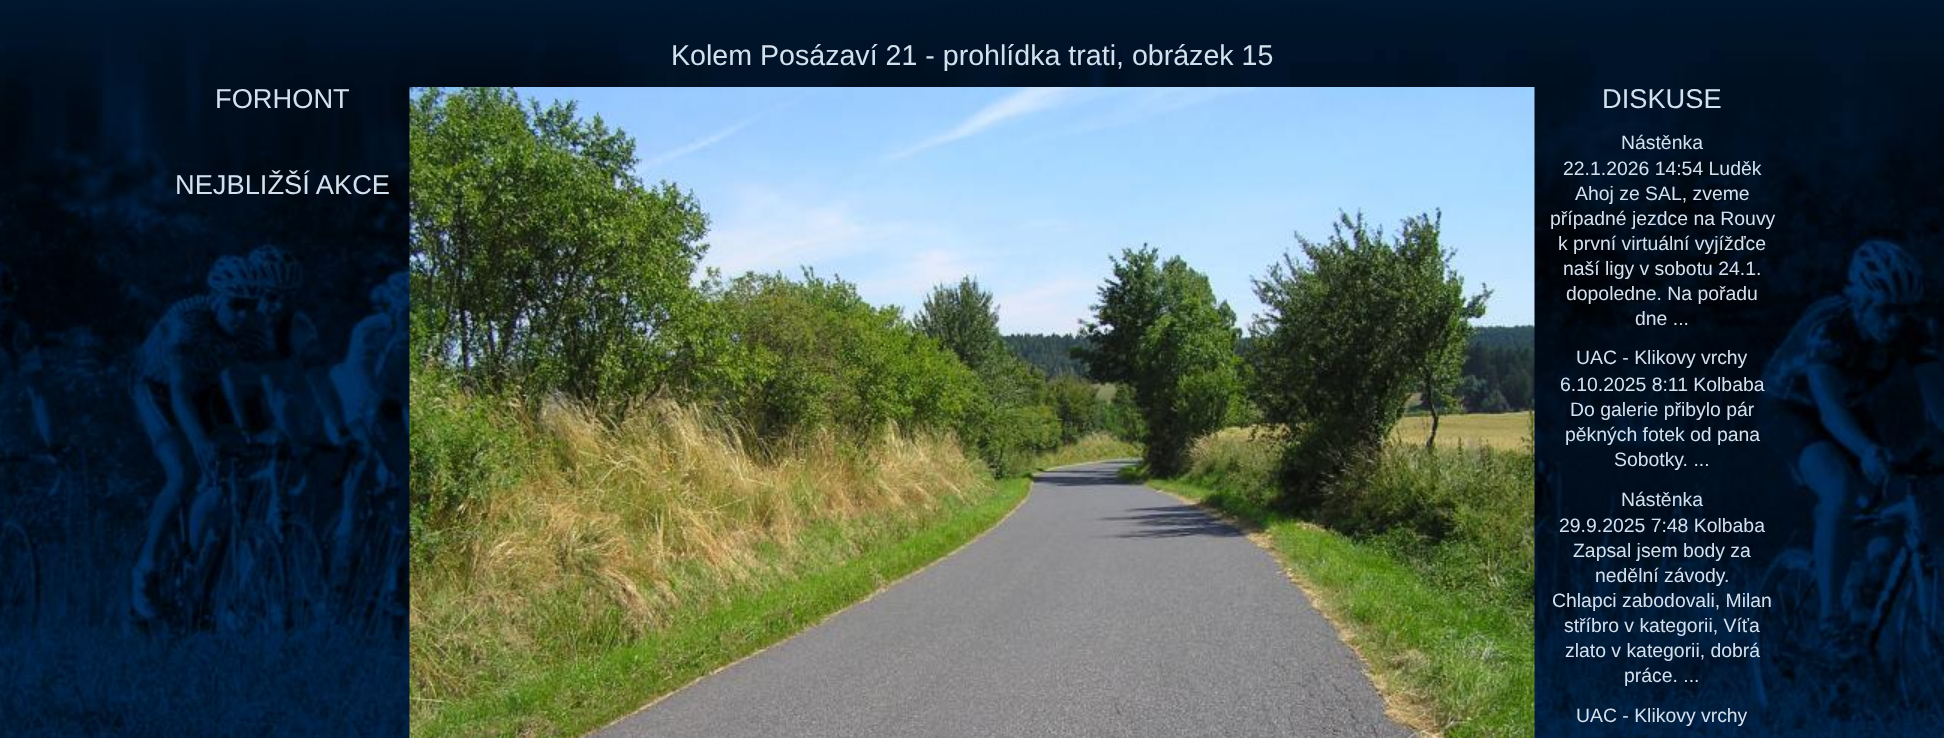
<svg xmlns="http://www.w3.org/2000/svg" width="1944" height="738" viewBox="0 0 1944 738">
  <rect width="100%" height="100%" fill="#ffffff"/>
  <image x="0" y="0" width="1944" height="738" href="img1.png"/>
  <text x="671" y="65" font-family="Liberation Sans" font-size="28.6" fill="#d3e0ed">Kolem Posázaví 21 - prohlídka trati, obrázek 15</text>
  <image x="409" y="87" width="1126" height="651" href="img2.png"/>
  <text x="215" y="108" font-family="Liberation Sans" font-size="27.25" fill="#d3e0ed">FORHONT</text>
  <text x="175" y="194" font-family="Liberation Sans" font-size="27.25" fill="#d3e0ed">NEJBLIŽŠÍ AKCE</text>
  <text x="1602" y="108" font-family="Liberation Sans" font-size="27.25" fill="#d3e0ed">DISKUSE</text>
  <text x="1621" y="149" font-family="Liberation Sans" font-size="19.4" fill="#d3e0ed">Nástěnka</text>
  <text x="1563" y="175" font-family="Liberation Sans" font-size="19.4" fill="#d3e0ed">22.1.2026 14:54 Luděk</text>
  <text x="1575" y="200" font-family="Liberation Sans" font-size="19.4" fill="#d3e0ed">Ahoj ze SAL, zveme</text>
  <text x="1550" y="225" font-family="Liberation Sans" font-size="19.4" fill="#d3e0ed">případné jezdce na Rouvy</text>
  <text x="1558" y="250" font-family="Liberation Sans" font-size="19.4" fill="#d3e0ed">k první virtuální vyjížďce</text>
  <text x="1563" y="275" font-family="Liberation Sans" font-size="19.4" fill="#d3e0ed">naší ligy v sobotu 24.1.</text>
  <text x="1566" y="300" font-family="Liberation Sans" font-size="19.4" fill="#d3e0ed">dopoledne. Na pořadu</text>
  <text x="1635" y="325" font-family="Liberation Sans" font-size="19.4" fill="#d3e0ed">dne ...</text>
  <text x="1576" y="364" font-family="Liberation Sans" font-size="19.4" fill="#d3e0ed">UAC - Klikovy vrchy</text>
  <text x="1560" y="391" font-family="Liberation Sans" font-size="19.4" fill="#d3e0ed">6.10.2025 8:11 Kolbaba</text>
  <text x="1570" y="416" font-family="Liberation Sans" font-size="19.4" fill="#d3e0ed">Do galerie přibylo pár</text>
  <text x="1565" y="441" font-family="Liberation Sans" font-size="19.4" fill="#d3e0ed">pěkných fotek od pana</text>
  <text x="1614" y="466" font-family="Liberation Sans" font-size="19.4" fill="#d3e0ed">Sobotky. ...</text>
  <text x="1621" y="506" font-family="Liberation Sans" font-size="19.4" fill="#d3e0ed">Nástěnka</text>
  <text x="1559" y="532" font-family="Liberation Sans" font-size="19.4" fill="#d3e0ed">29.9.2025 7:48 Kolbaba</text>
  <text x="1573" y="557" font-family="Liberation Sans" font-size="19.4" fill="#d3e0ed">Zapsal jsem body za</text>
  <text x="1595" y="582" font-family="Liberation Sans" font-size="19.4" fill="#d3e0ed">nedělní závody.</text>
  <text x="1552" y="607" font-family="Liberation Sans" font-size="19.4" fill="#d3e0ed">Chlapci zabodovali, Milan</text>
  <text x="1564" y="632" font-family="Liberation Sans" font-size="19.4" fill="#d3e0ed">stříbro v kategorii, Víťa</text>
  <text x="1565" y="657" font-family="Liberation Sans" font-size="19.4" fill="#d3e0ed">zlato v kategorii, dobrá</text>
  <text x="1624" y="682" font-family="Liberation Sans" font-size="19.4" fill="#d3e0ed">práce. ...</text>
  <text x="1576" y="722" font-family="Liberation Sans" font-size="19.4" fill="#d3e0ed">UAC - Klikovy vrchy</text>
</svg>
